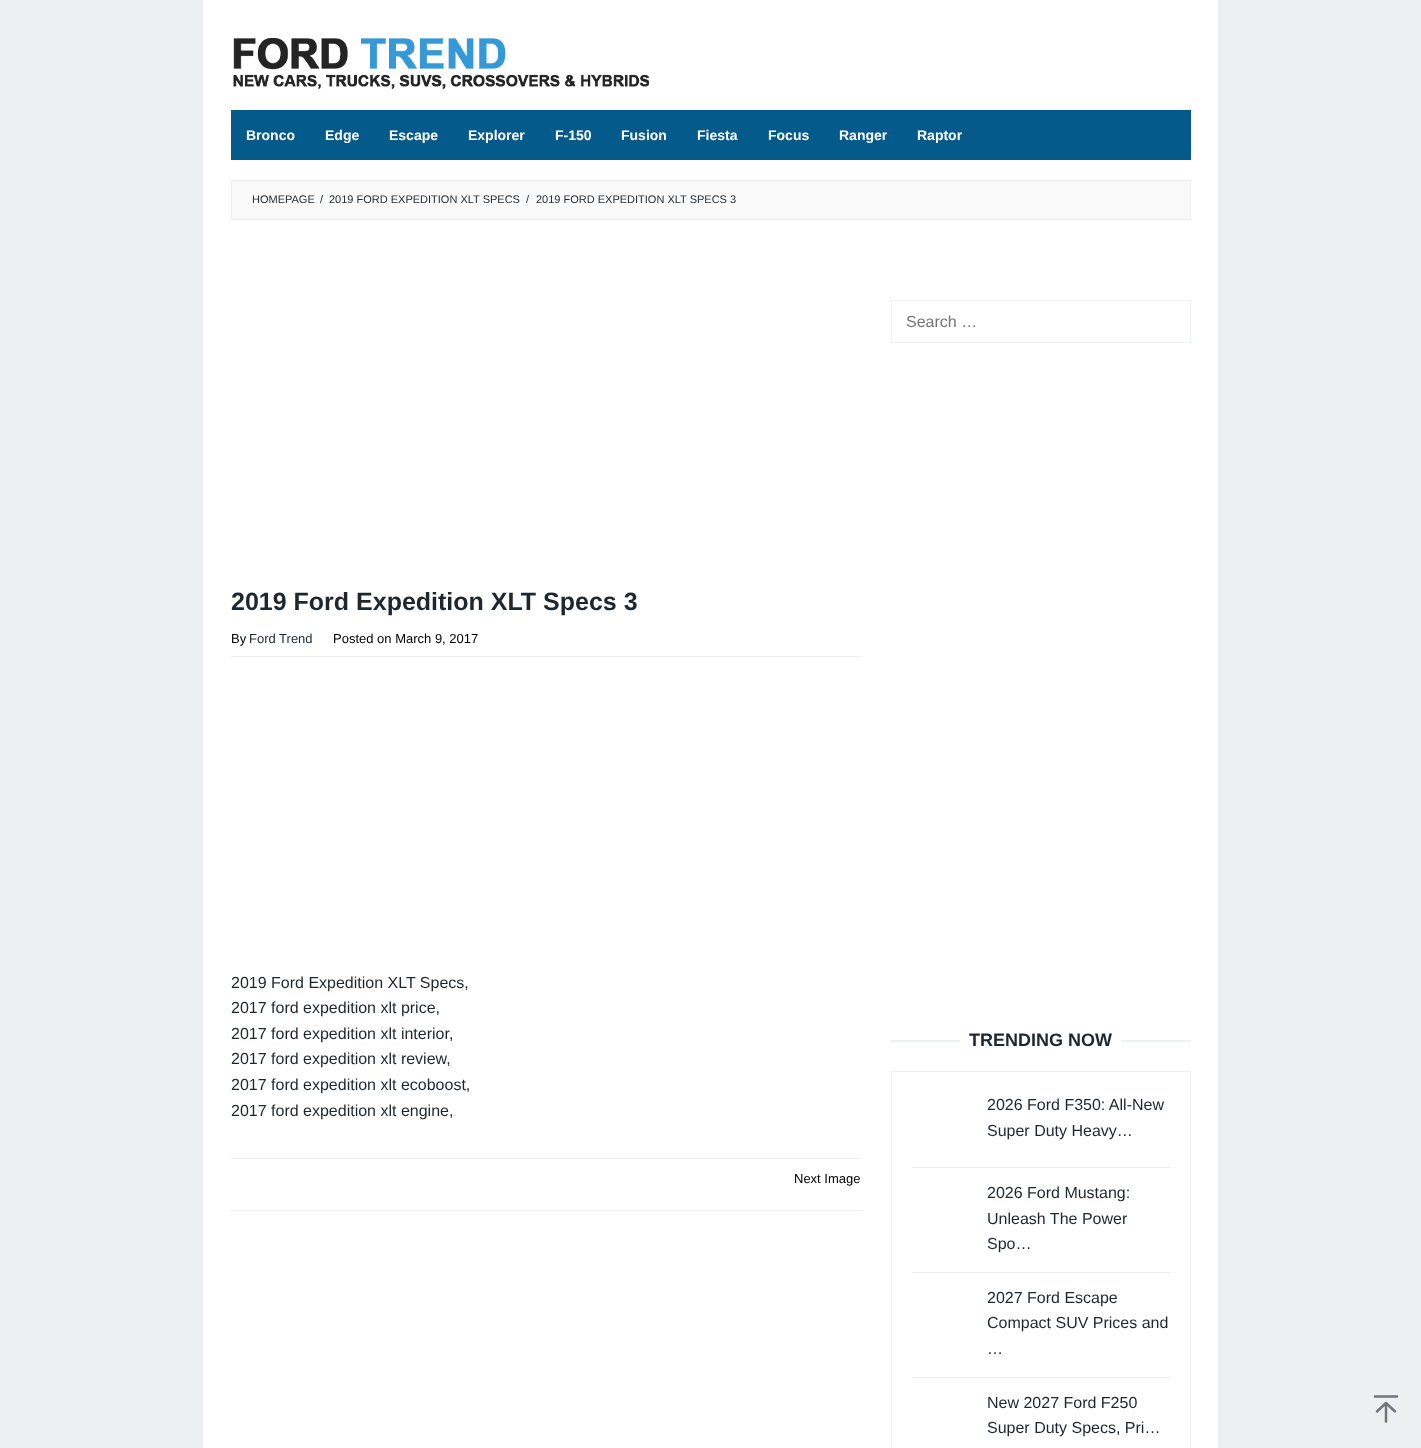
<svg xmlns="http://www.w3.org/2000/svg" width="1421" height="1448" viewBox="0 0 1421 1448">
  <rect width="100%" height="100%" fill="#ecf0f1"/>
  <rect x="203" y="0" width="1015" height="110" fill="#ffffff"/>
  <image x="233" y="38" width="416" height="51" href="img1.png"/>
  <rect x="203" y="110" width="1015" height="1338" fill="#ffffff"/>
  <rect x="231" y="110" width="960" height="50" fill="#045b8b"/>
  <text x="246" y="140" font-family="Liberation Sans" font-size="14" font-weight="bold" fill="#ffffff">Bronco</text>
  <text x="325" y="140" font-family="Liberation Sans" font-size="14" font-weight="bold" fill="#ffffff">Edge</text>
  <text x="389" y="140" font-family="Liberation Sans" font-size="14" font-weight="bold" fill="#ffffff">Escape</text>
  <text x="468" y="140" font-family="Liberation Sans" font-size="14" font-weight="bold" fill="#ffffff">Explorer</text>
  <text x="555" y="140" font-family="Liberation Sans" font-size="14" font-weight="bold" fill="#ffffff">F-150</text>
  <text x="621" y="140" font-family="Liberation Sans" font-size="14" font-weight="bold" fill="#ffffff">Fusion</text>
  <text x="697" y="140" font-family="Liberation Sans" font-size="14" font-weight="bold" fill="#ffffff">Fiesta</text>
  <text x="768" y="140" font-family="Liberation Sans" font-size="14" font-weight="bold" fill="#ffffff">Focus</text>
  <text x="839" y="140" font-family="Liberation Sans" font-size="14" font-weight="bold" fill="#ffffff">Ranger</text>
  <text x="917" y="140" font-family="Liberation Sans" font-size="14" font-weight="bold" fill="#ffffff">Raptor</text>
  <rect x="231.5" y="180.5" width="959" height="39" fill="#f9f9f9" stroke="#ecf0f1"/>
  <text x="252" y="203" font-family="Liberation Sans" font-size="11" fill="#1e272e">HOMEPAGE</text>
  <text x="320" y="203" font-family="Liberation Sans" font-size="11" fill="#1e272e">/</text>
  <text x="329" y="203" font-family="Liberation Sans" font-size="11" fill="#1e272e">2019 FORD EXPEDITION XLT SPECS</text>
  <text x="526" y="203" font-family="Liberation Sans" font-size="11" fill="#1e272e">/</text>
  <text x="536" y="203" font-family="Liberation Sans" font-size="11" fill="#1e272e">2019 FORD EXPEDITION XLT SPECS 3</text>
  <rect x="231" y="1210" width="630" height="1" fill="#ecf0f1"/>
  <rect x="231" y="656" width="630" height="1" fill="#ecf0f1"/>
  <text x="231" y="610" font-family="Liberation Sans" font-size="25" font-weight="bold" fill="#1e272e">2019 Ford Expedition XLT Specs 3</text>
  <text x="231" y="643" font-family="Liberation Sans" font-size="13" fill="#000000">By</text>
  <text x="249" y="643" font-family="Liberation Sans" font-size="13" fill="#1e272e">Ford Trend</text>
  <text x="333" y="643" font-family="Liberation Sans" font-size="13" fill="#000000">Posted on March 9, 2017</text>
  <text x="231" y="988" font-family="Liberation Sans" font-size="16" fill="#1e272e">2019 Ford Expedition XLT Specs,</text>
  <text x="231" y="1013" font-family="Liberation Sans" font-size="16" fill="#1e272e">2017 ford expedition xlt price,</text>
  <text x="231" y="1039" font-family="Liberation Sans" font-size="16" fill="#1e272e">2017 ford expedition xlt interior,</text>
  <text x="231" y="1064" font-family="Liberation Sans" font-size="16" fill="#1e272e">2017 ford expedition xlt review,</text>
  <text x="231" y="1090" font-family="Liberation Sans" font-size="16" fill="#1e272e">2017 ford expedition xlt ecoboost,</text>
  <text x="231" y="1116" font-family="Liberation Sans" font-size="16" fill="#1e272e">2017 ford expedition xlt engine,</text>
  <rect x="231" y="1158" width="630" height="1" fill="#ecf0f1"/>
  <text x="794" y="1183" font-family="Liberation Sans" font-size="13" fill="#000000">Next Image</text>
  <rect x="891.5" y="300.5" width="299" height="42" fill="none" stroke="#ecf0f1"/>
  <text x="906" y="327" font-family="Liberation Sans" font-size="16" fill="#757575">Search …</text>
  <rect x="891" y="1040" width="69" height="2" fill="#ecf0f1"/>
  <text x="969" y="1046" font-family="Liberation Sans" font-size="18" font-weight="bold" fill="#1e272e">TRENDING NOW</text>
  <rect x="1121" y="1040" width="70" height="2" fill="#ecf0f1"/>
  <rect x="891.5" y="1071.5" width="299" height="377" fill="none" stroke="#ecf0f1"/>
  <rect x="912" y="1167" width="258" height="1" fill="#ecf0f1"/>
  <text x="987" y="1110" font-family="Liberation Sans" font-size="16" fill="#1e272e">2026 Ford F350: All-New</text>
  <text x="987" y="1136" font-family="Liberation Sans" font-size="16" fill="#1e272e">Super Duty Heavy…</text>
  <rect x="912" y="1272" width="258" height="1" fill="#ecf0f1"/>
  <text x="987" y="1198" font-family="Liberation Sans" font-size="16" fill="#1e272e">2026 Ford Mustang:</text>
  <text x="987" y="1224" font-family="Liberation Sans" font-size="16" fill="#1e272e">Unleash The Power</text>
  <text x="987" y="1249" font-family="Liberation Sans" font-size="16" fill="#1e272e">Spo…</text>
  <rect x="912" y="1377" width="258" height="1" fill="#ecf0f1"/>
  <text x="987" y="1303" font-family="Liberation Sans" font-size="16" fill="#1e272e">2027 Ford Escape</text>
  <text x="987" y="1328" font-family="Liberation Sans" font-size="16" fill="#1e272e">Compact SUV Prices and</text>
  <text x="987" y="1354" font-family="Liberation Sans" font-size="16" fill="#1e272e">…</text>
  <text x="987" y="1408" font-family="Liberation Sans" font-size="16" fill="#1e272e">New 2027 Ford F250</text>
  <text x="987" y="1433" font-family="Liberation Sans" font-size="16" fill="#1e272e">Super Duty Specs, Pri…</text>
  <path d="M1386 1421.5V1403M1377 1411.5L1386 1403L1395 1411.5M1375 1396.5H1397" fill="none" stroke="#70777c" stroke-width="2.5" stroke-linecap="round" stroke-linejoin="round"/>
</svg>
